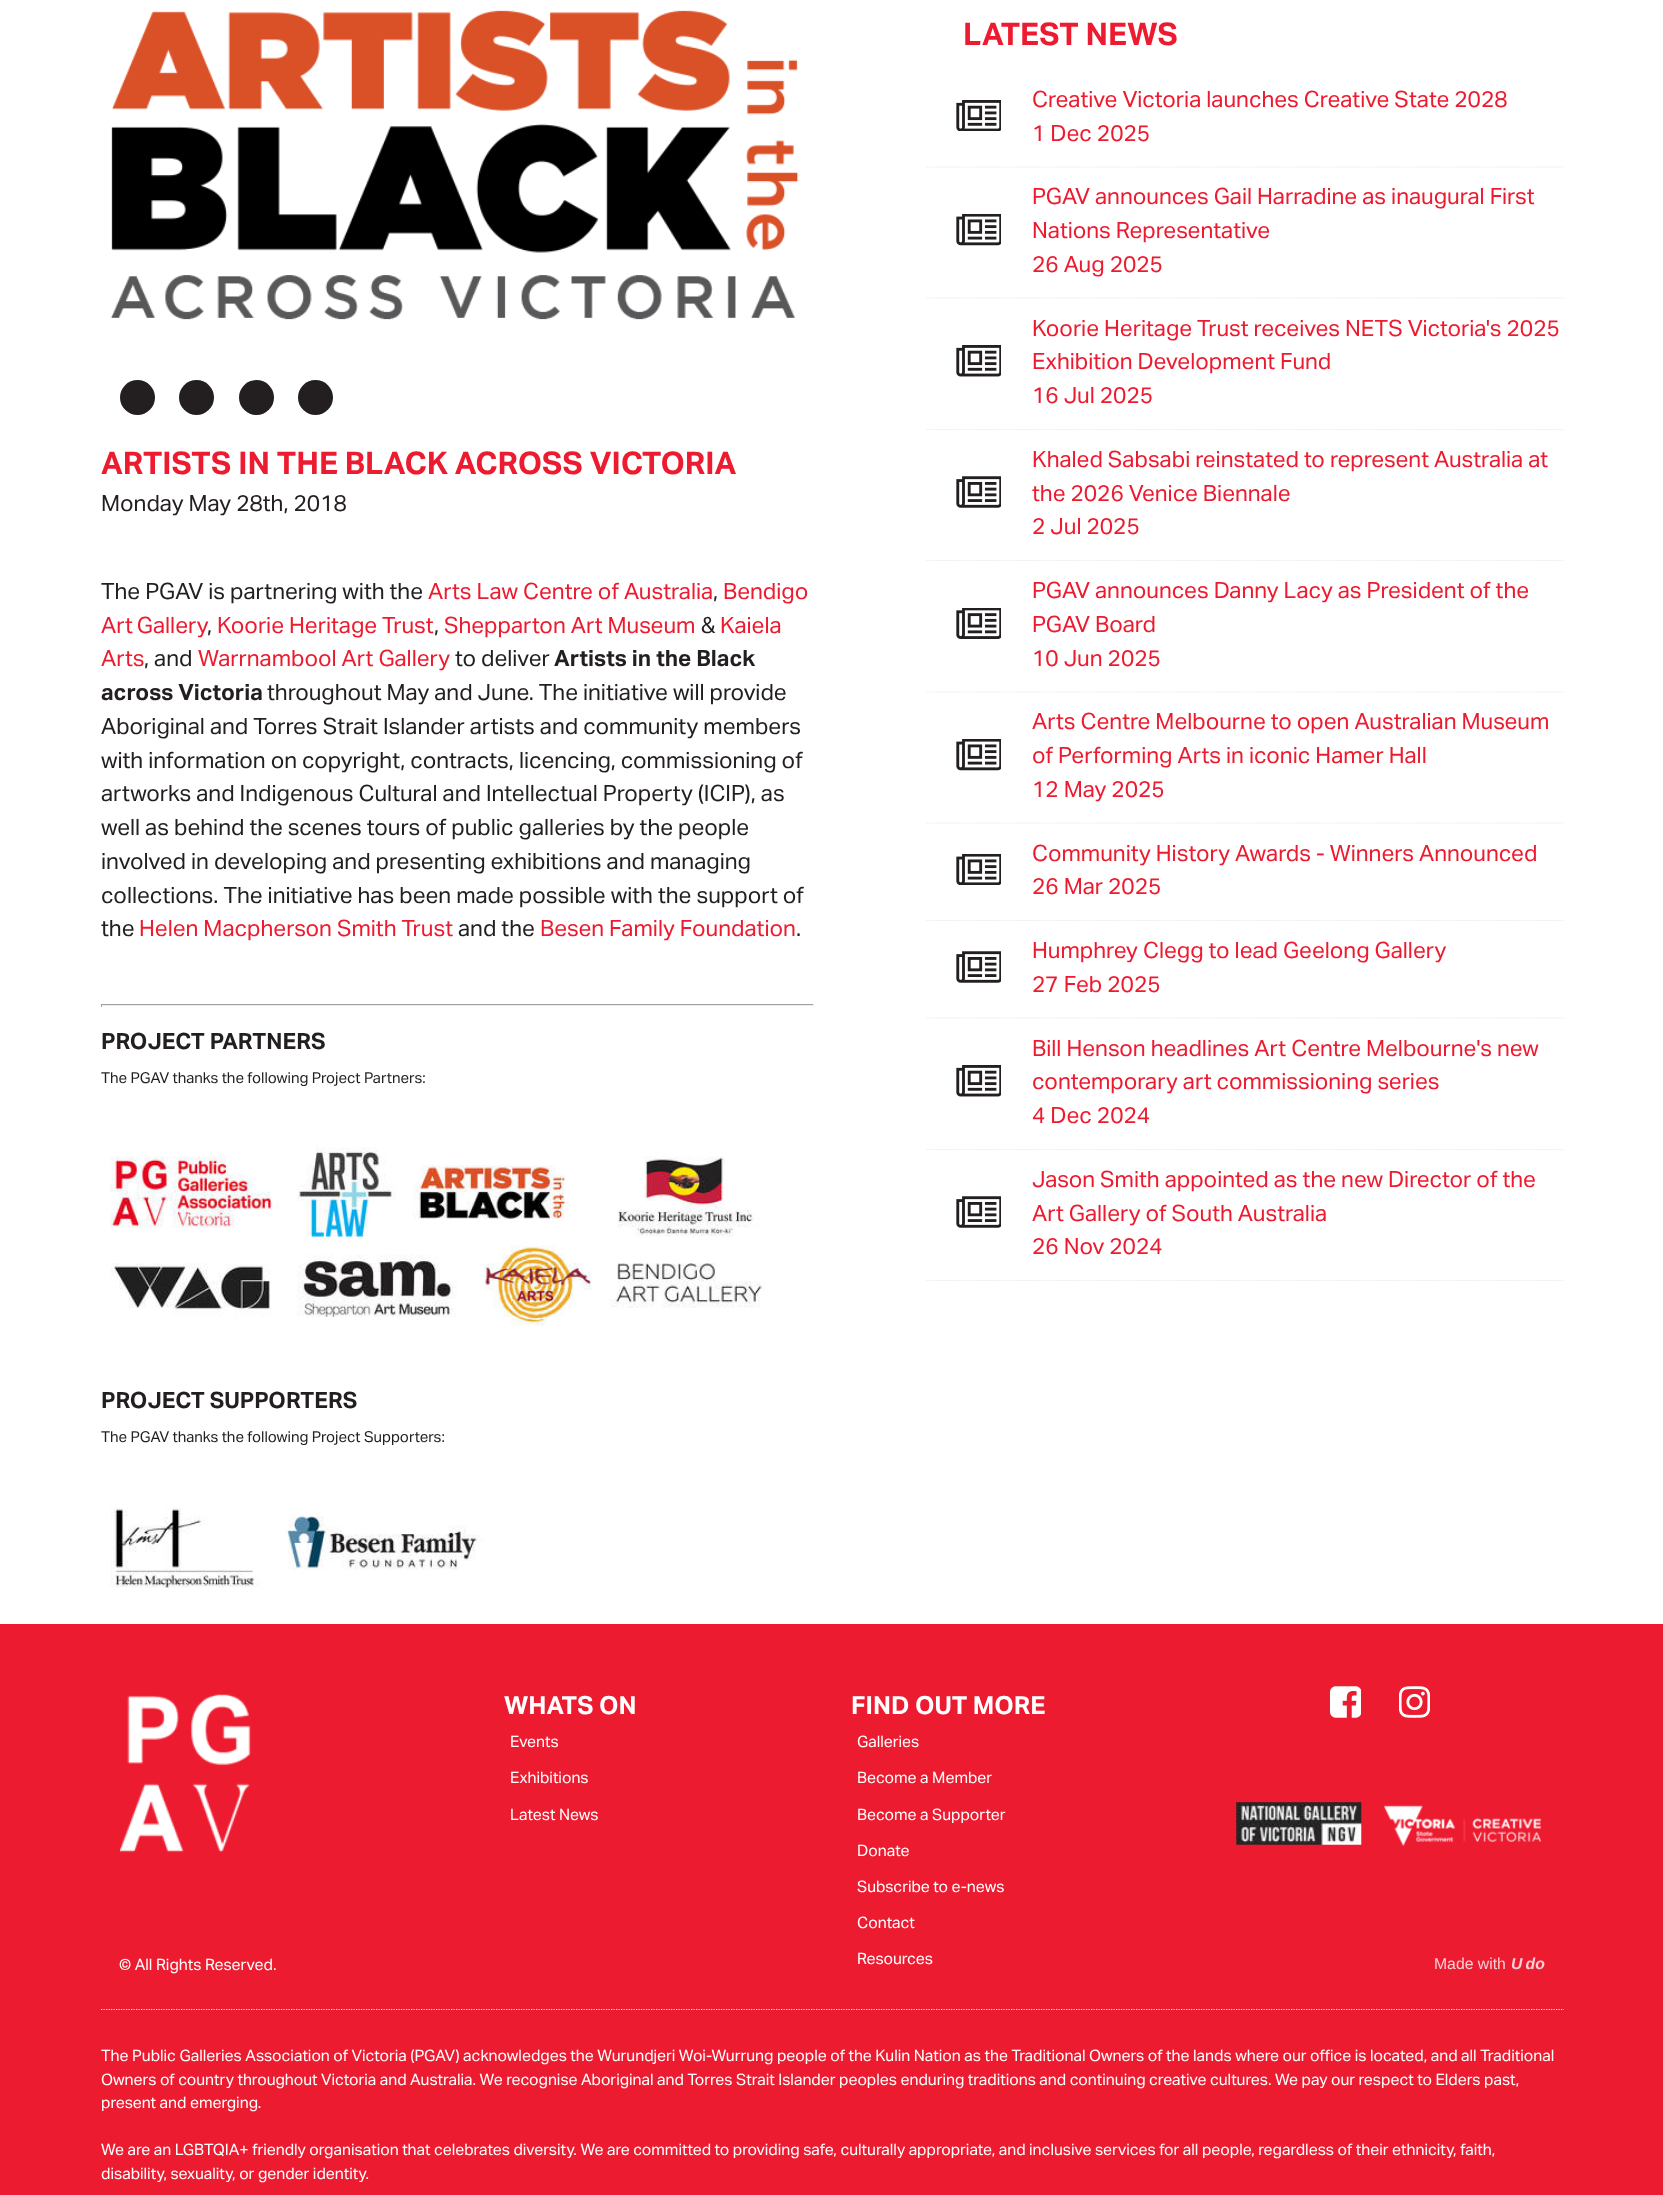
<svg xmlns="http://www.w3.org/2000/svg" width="1663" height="2195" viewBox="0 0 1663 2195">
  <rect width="100%" height="100%" fill="#ffffff"/>
  <image x="110" y="10" width="689" height="310" href="img1.png"/>
  <circle cx="137.5" cy="397.5" r="17.5" fill="#231f20"/>
  <circle cx="196.5" cy="397.5" r="17.5" fill="#231f20"/>
  <circle cx="256.5" cy="397.5" r="17.5" fill="#231f20"/>
  <circle cx="315.5" cy="397.5" r="17.5" fill="#231f20"/>
  <text x="101" y="474" font-family="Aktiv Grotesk" font-size="31.25" font-weight="bold" fill="#ed1b2f">ARTISTS IN THE BLACK ACROSS VICTORIA</text>
  <text x="101" y="511" font-family="Aktiv Grotesk" font-size="22.5" fill="#231f20">Monday May 28th, 2018</text>
  <text x="101" y="599" font-family="Aktiv Grotesk" font-size="22.5" fill="#231f20">The PGAV is partnering with the</text>
  <text x="428" y="599" font-family="Aktiv Grotesk" font-size="22.5" fill="#ed1b2f">Arts Law Centre of Australia</text>
  <text x="713" y="599" font-family="Aktiv Grotesk" font-size="22.5" fill="#231f20">,</text>
  <text x="723" y="599" font-family="Aktiv Grotesk" font-size="22.5" fill="#ed1b2f">Bendigo</text>
  <text x="101" y="633" word-spacing="-1" font-family="Aktiv Grotesk" font-size="22.5" fill="#ed1b2f">Art Gallery</text>
  <text x="207" y="633" font-family="Aktiv Grotesk" font-size="22.5" fill="#231f20">,</text>
  <text x="217" y="633" font-family="Aktiv Grotesk" font-size="22.5" fill="#ed1b2f">Koorie Heritage Trust</text>
  <text x="434" y="633" font-family="Aktiv Grotesk" font-size="22.5" fill="#231f20">,</text>
  <text x="444" y="633" font-family="Aktiv Grotesk" font-size="22.5" fill="#ed1b2f">Shepparton Art Museum</text>
  <text x="701" y="633" font-family="Aktiv Grotesk" font-size="22.5" fill="#231f20">&amp;</text>
  <text x="720" y="633" font-family="Aktiv Grotesk" font-size="22.5" fill="#ed1b2f">Kaiela</text>
  <text x="101" y="666" font-family="Aktiv Grotesk" font-size="22.5" fill="#ed1b2f">Arts</text>
  <text x="144" y="666" font-family="Aktiv Grotesk" font-size="22.5" fill="#231f20">, and</text>
  <text x="198" y="666" font-family="Aktiv Grotesk" font-size="22.5" fill="#ed1b2f">Warrnambool Art Gallery</text>
  <text x="455" y="666" font-family="Aktiv Grotesk" font-size="22.5" fill="#231f20">to deliver</text>
  <text x="554" y="666" font-family="Aktiv Grotesk" font-size="22.5" font-weight="bold" fill="#231f20">Artists in the Black</text>
  <text x="101" y="700" font-family="Aktiv Grotesk" font-size="22.5" font-weight="bold" fill="#231f20">across Victoria</text>
  <text x="267" y="700" font-family="Aktiv Grotesk" font-size="22.5" fill="#231f20">throughout May and June. The initiative will provide</text>
  <text x="101" y="734" font-family="Aktiv Grotesk" font-size="22.5" fill="#231f20">Aboriginal and Torres Strait Islander artists and community members</text>
  <text x="101" y="768" font-family="Aktiv Grotesk" font-size="22.5" fill="#231f20">with information on copyright, contracts, licencing, commissioning of</text>
  <text x="101" y="801" font-family="Aktiv Grotesk" font-size="22.5" fill="#231f20">artworks and Indigenous Cultural and Intellectual Property (ICIP), as</text>
  <text x="101" y="835" font-family="Aktiv Grotesk" font-size="22.5" fill="#231f20">well as behind the scenes tours of public galleries by the people</text>
  <text x="101" y="869" font-family="Aktiv Grotesk" font-size="22.5" fill="#231f20">involved in developing and presenting exhibitions and managing</text>
  <text x="101" y="903" font-family="Aktiv Grotesk" font-size="22.5" fill="#231f20">collections. The initiative has been made possible with the support of</text>
  <text x="101" y="936" font-family="Aktiv Grotesk" font-size="22.5" fill="#231f20">the</text>
  <text x="139" y="936" font-family="Aktiv Grotesk" font-size="22.5" fill="#ed1b2f">Helen Macpherson Smith Trust</text>
  <text x="458" y="936" font-family="Aktiv Grotesk" font-size="22.5" fill="#231f20">and the</text>
  <text x="540" y="936" font-family="Aktiv Grotesk" font-size="22.5" fill="#ed1b2f">Besen Family Foundation</text>
  <text x="796" y="936" font-family="Aktiv Grotesk" font-size="22.5" fill="#231f20">.</text>
  <rect x="101" y="1004" width="713" height="1" fill="#9f9f9f"/>
  <rect x="813" y="1004" width="1" height="3" fill="#eeeeee"/>
  <rect x="101" y="1005" width="713" height="1" fill="#eeeeee"/>
  <rect x="101" y="1004" width="1" height="3" fill="#9f9f9f"/>
  <text x="101" y="1049" font-family="Aktiv Grotesk" font-size="22.5" font-weight="bold" fill="#231f20">PROJECT PARTNERS</text>
  <text x="101" y="1083" font-family="Aktiv Grotesk" font-size="15" fill="#231f20">The PGAV thanks the following Project Partners:</text>
  <image x="110" y="1147" width="656" height="179" href="img2.png"/>
  <text x="101" y="1408" font-family="Aktiv Grotesk" font-size="22.5" font-weight="bold" fill="#231f20">PROJECT SUPPORTERS</text>
  <text x="101" y="1442" font-family="Aktiv Grotesk" font-size="15" fill="#231f20">The PGAV thanks the following Project Supporters:</text>
  <image x="110" y="1507" width="374" height="81" href="img3.png"/>
  <text x="963" y="45" font-family="Aktiv Grotesk" font-size="31.25" font-weight="bold" fill="#ed1b2f">LATEST NEWS</text>
  <image x="956" y="100" width="45" height="31" href="img4.png"/>
  <text x="1032" y="107" font-family="Aktiv Grotesk" font-size="22.5" fill="#ed1b2f">Creative Victoria launches Creative State 2028</text>
  <text x="1032" y="141" font-family="Aktiv Grotesk" font-size="22.5" fill="#ed1b2f">1 Dec 2025</text>
  <path d="M926 167H1564" fill="none" stroke="#e8e8e8" stroke-width="1.2" stroke-dasharray="1.25 1.25"/>
  <image x="956" y="214" width="45" height="32" href="img5.png"/>
  <text x="1032" y="204" font-family="Aktiv Grotesk" font-size="22.5" fill="#ed1b2f">PGAV announces Gail Harradine as inaugural First</text>
  <text x="1032" y="238" font-family="Aktiv Grotesk" font-size="22.5" fill="#ed1b2f">Nations Representative</text>
  <text x="1032" y="272" font-family="Aktiv Grotesk" font-size="22.5" fill="#ed1b2f">26 Aug 2025</text>
  <path d="M926 298H1564" fill="none" stroke="#e8e8e8" stroke-width="1.2" stroke-dasharray="1.25 1.25"/>
  <image x="956" y="345" width="45" height="32" href="img6.png"/>
  <text x="1032" y="336" font-family="Aktiv Grotesk" font-size="22.5" fill="#ed1b2f">Koorie Heritage Trust receives NETS Victoria's 2025</text>
  <text x="1032" y="369" font-family="Aktiv Grotesk" font-size="22.5" fill="#ed1b2f">Exhibition Development Fund</text>
  <text x="1032" y="403" font-family="Aktiv Grotesk" font-size="22.5" fill="#ed1b2f">16 Jul 2025</text>
  <path d="M926 429.5H1564" fill="none" stroke="#e8e8e8" stroke-width="1.2" stroke-dasharray="1.25 1.25"/>
  <image x="956" y="476" width="45" height="32" href="img7.png"/>
  <text x="1032" y="467" font-family="Aktiv Grotesk" font-size="22.5" fill="#ed1b2f">Khaled Sabsabi reinstated to represent Australia at</text>
  <text x="1032" y="501" font-family="Aktiv Grotesk" font-size="22.5" fill="#ed1b2f">the 2026 Venice Biennale</text>
  <text x="1032" y="534" font-family="Aktiv Grotesk" font-size="22.5" fill="#ed1b2f">2 Jul 2025</text>
  <path d="M926 560.5H1564" fill="none" stroke="#e8e8e8" stroke-width="1.2" stroke-dasharray="1.25 1.25"/>
  <image x="956" y="608" width="45" height="31" href="img8.png"/>
  <text x="1032" y="598" font-family="Aktiv Grotesk" font-size="22.5" fill="#ed1b2f">PGAV announces Danny Lacy as President of the</text>
  <text x="1032" y="632" font-family="Aktiv Grotesk" font-size="22.5" fill="#ed1b2f">PGAV Board</text>
  <text x="1032" y="666" font-family="Aktiv Grotesk" font-size="22.5" fill="#ed1b2f">10 Jun 2025</text>
  <path d="M926 692H1564" fill="none" stroke="#e8e8e8" stroke-width="1.2" stroke-dasharray="1.25 1.25"/>
  <image x="956" y="739" width="45" height="32" href="img5.png"/>
  <text x="1032" y="729" font-family="Aktiv Grotesk" font-size="22.5" fill="#ed1b2f">Arts Centre Melbourne to open Australian Museum</text>
  <text x="1032" y="763" font-family="Aktiv Grotesk" font-size="22.5" fill="#ed1b2f">of Performing Arts in iconic Hamer Hall</text>
  <text x="1032" y="797" font-family="Aktiv Grotesk" font-size="22.5" fill="#ed1b2f">12 May 2025</text>
  <path d="M926 823H1564" fill="none" stroke="#e8e8e8" stroke-width="1.2" stroke-dasharray="1.25 1.25"/>
  <image x="956" y="854" width="45" height="31" href="img9.png"/>
  <text x="1032" y="861" font-family="Aktiv Grotesk" font-size="22.5" fill="#ed1b2f">Community History Awards - Winners Announced</text>
  <text x="1032" y="894" font-family="Aktiv Grotesk" font-size="22.5" fill="#ed1b2f">26 Mar 2025</text>
  <path d="M926 920.5H1564" fill="none" stroke="#e8e8e8" stroke-width="1.2" stroke-dasharray="1.25 1.25"/>
  <image x="956" y="951" width="45" height="32" href="img7.png"/>
  <text x="1032" y="958" font-family="Aktiv Grotesk" font-size="22.5" fill="#ed1b2f">Humphrey Clegg to lead Geelong Gallery</text>
  <text x="1032" y="992" font-family="Aktiv Grotesk" font-size="22.5" fill="#ed1b2f">27 Feb 2025</text>
  <path d="M926 1018H1564" fill="none" stroke="#e8e8e8" stroke-width="1.2" stroke-dasharray="1.25 1.25"/>
  <image x="956" y="1065" width="45" height="32" href="img6.png"/>
  <text x="1032" y="1056" font-family="Aktiv Grotesk" font-size="22.5" fill="#ed1b2f">Bill Henson headlines Art Centre Melbourne's new</text>
  <text x="1032" y="1089" font-family="Aktiv Grotesk" font-size="22.5" fill="#ed1b2f">contemporary art commissioning series</text>
  <text x="1032" y="1123" font-family="Aktiv Grotesk" font-size="22.5" fill="#ed1b2f">4 Dec 2024</text>
  <path d="M926 1149.5H1564" fill="none" stroke="#e8e8e8" stroke-width="1.2" stroke-dasharray="1.25 1.25"/>
  <image x="956" y="1196" width="45" height="32" href="img7.png"/>
  <text x="1032" y="1187" font-family="Aktiv Grotesk" font-size="22.5" fill="#ed1b2f">Jason Smith appointed as the new Director of the</text>
  <text x="1032" y="1221" font-family="Aktiv Grotesk" font-size="22.5" fill="#ed1b2f">Art Gallery of South Australia</text>
  <text x="1032" y="1254" font-family="Aktiv Grotesk" font-size="22.5" fill="#ed1b2f">26 Nov 2024</text>
  <path d="M926 1280.5H1564" fill="none" stroke="#e8e8e8" stroke-width="1.2" stroke-dasharray="1.25 1.25"/>
  <rect x="0" y="1624" width="1663" height="571" fill="#ed1b2f"/>
  <image x="120" y="1694" width="131" height="159" href="img10.png"/>
  <text x="119" y="1970" font-family="Aktiv Grotesk" font-size="15.75" fill="#ffffff">© All Rights Reserved.</text>
  <text x="504" y="1714" font-family="Aktiv Grotesk" font-size="25" font-weight="bold" fill="#ffffff">WHATS ON</text>
  <text x="510" y="1747" font-family="Aktiv Grotesk" font-size="15.75" fill="#ffffff">Events</text>
  <text x="510" y="1783" font-family="Aktiv Grotesk" font-size="15.75" fill="#ffffff">Exhibitions</text>
  <text x="510" y="1820" font-family="Aktiv Grotesk" font-size="15.75" fill="#ffffff">Latest News</text>
  <text x="851" y="1714" font-family="Aktiv Grotesk" font-size="25" font-weight="bold" fill="#ffffff">FIND OUT MORE</text>
  <text x="857" y="1747" font-family="Aktiv Grotesk" font-size="15.75" fill="#ffffff">Galleries</text>
  <text x="857" y="1783" font-family="Aktiv Grotesk" font-size="15.75" fill="#ffffff">Become a Member</text>
  <text x="857" y="1820" font-family="Aktiv Grotesk" font-size="15.75" fill="#ffffff">Become a Supporter</text>
  <text x="857" y="1856" font-family="Aktiv Grotesk" font-size="15.75" fill="#ffffff">Donate</text>
  <text x="857" y="1892" font-family="Aktiv Grotesk" font-size="15.75" fill="#ffffff">Subscribe to e-news</text>
  <text x="857" y="1928" font-family="Aktiv Grotesk" font-size="15.75" fill="#ffffff">Contact</text>
  <text x="857" y="1964" font-family="Aktiv Grotesk" font-size="15.75" fill="#ffffff">Resources</text>
  <image x="1330" y="1686" width="31" height="32" href="img11.png"/>
  <image x="1399" y="1686" width="31" height="32" href="img12.png"/>
  <image x="1236" y="1802" width="126" height="43" href="img13.png"/>
  <image x="1384" y="1805" width="158" height="41" href="img14.png"/>
  <text x="1434" y="1969" font-family="Liberation Sans" font-size="15.75" fill="#fbd1d5">Made with</text>
  <text x="1511" y="1969" font-family="Liberation Sans" font-size="15.75" font-weight="bold" font-style="italic" fill="#fbd1d5">U do</text>
  <path d="M101 2009.5H1564" fill="none" stroke="#e8e8e8" stroke-width="1.2" stroke-dasharray="1.25 1.25"/>
  <text x="101" y="2061" font-family="Aktiv Grotesk" font-size="15.75" fill="#ffffff">The Public Galleries Association of Victoria (PGAV) acknowledges the Wurundjeri Woi-Wurrung people of the Kulin Nation as the Traditional Owners of the lands where our office is located, and all Traditional</text>
  <text x="101" y="2085" font-family="Aktiv Grotesk" font-size="15.75" fill="#ffffff">Owners of country throughout Victoria and Australia. We recognise Aboriginal and Torres Strait Islander peoples enduring traditions and continuing creative cultures. We pay our respect to Elders past,</text>
  <text x="101" y="2108" font-family="Aktiv Grotesk" font-size="15.75" fill="#ffffff">present and emerging.</text>
  <text x="101" y="2155" font-family="Aktiv Grotesk" font-size="15.75" fill="#ffffff">We are an LGBTQIA+ friendly organisation that celebrates diversity. We are committed to providing safe, culturally appropriate, and inclusive services for all people, regardless of their ethnicity, faith,</text>
  <text x="101" y="2179" font-family="Aktiv Grotesk" font-size="15.75" fill="#ffffff">disability, sexuality, or gender identity.</text>
</svg>
